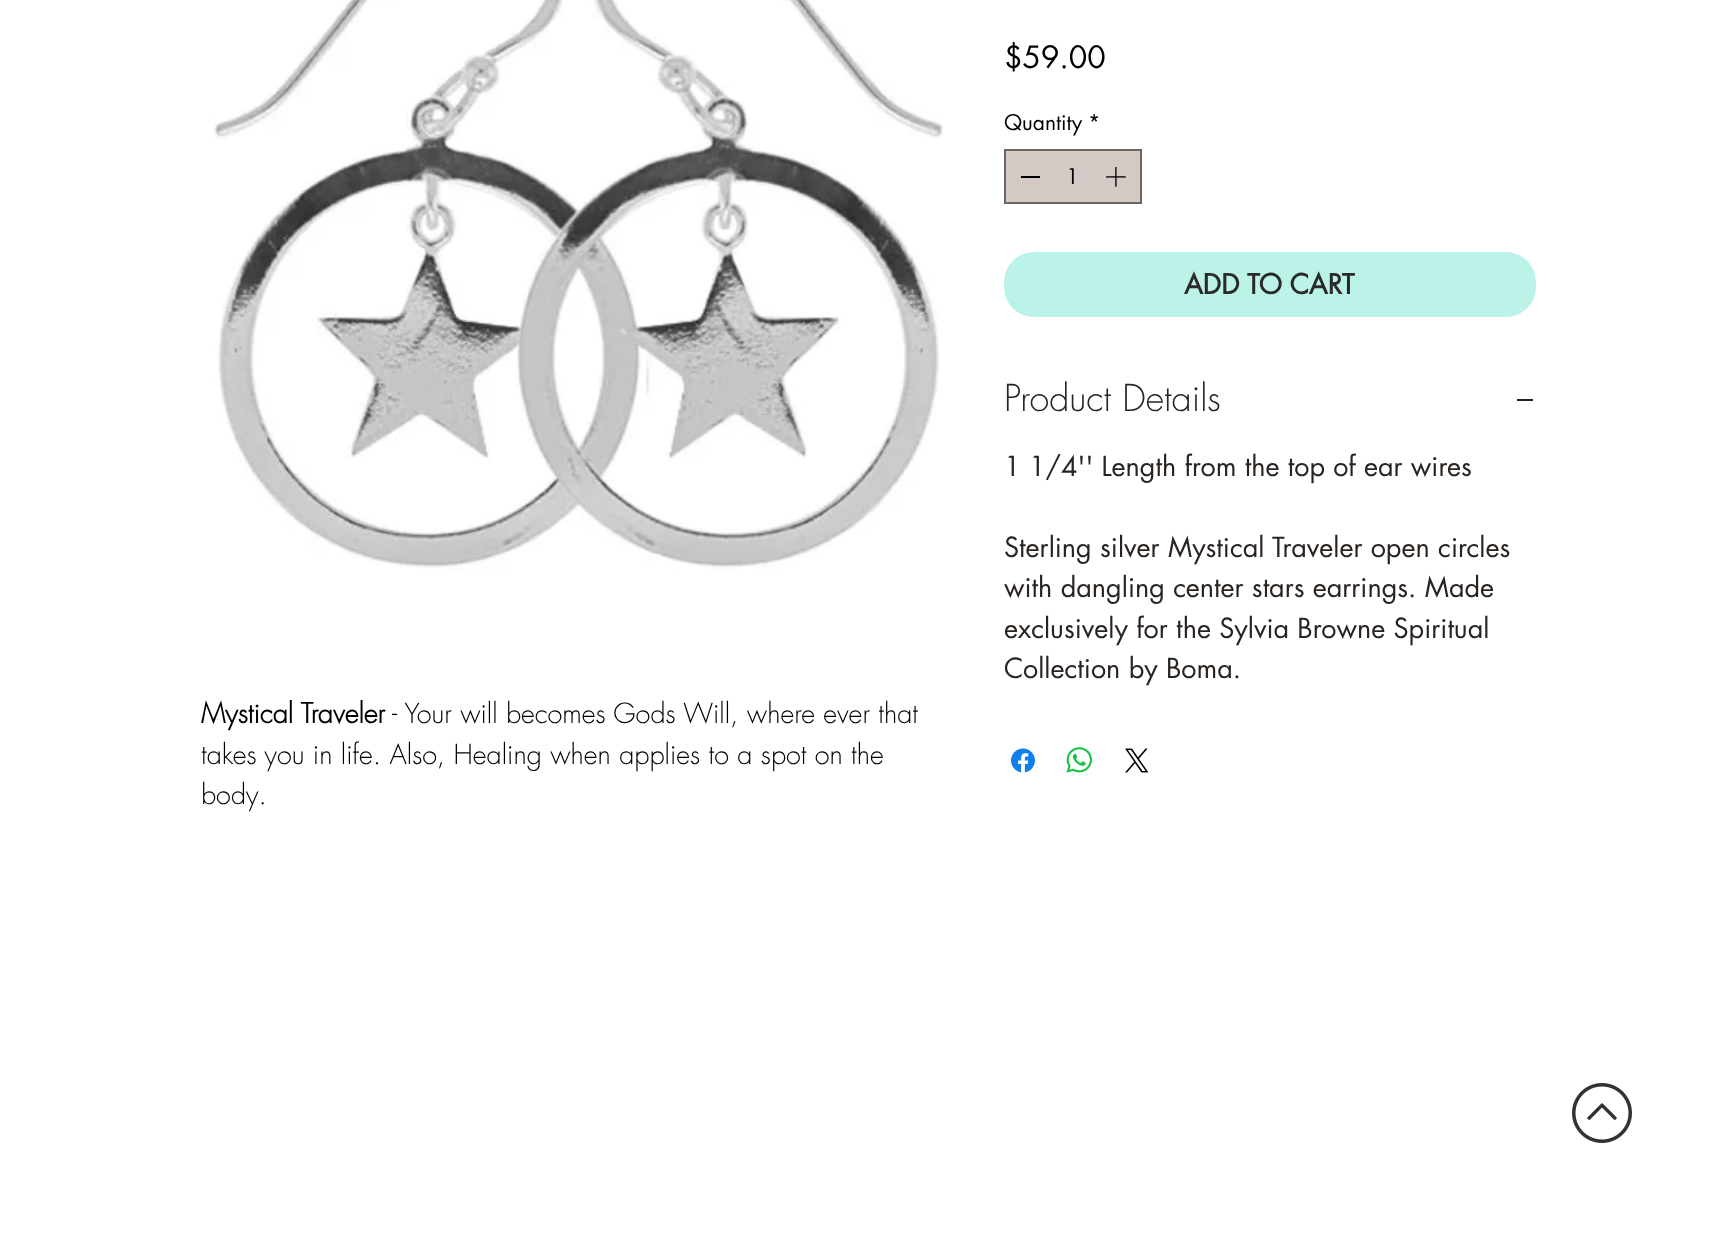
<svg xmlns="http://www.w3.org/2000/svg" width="1736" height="1248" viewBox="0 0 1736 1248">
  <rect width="100%" height="100%" fill="#ffffff"/>
  <text x="1004" y="68" font-family="futura" font-size="30" fill="#000000">$59.00</text>
  <text x="1004" y="130" font-family="futura" font-size="21" fill="#000000">Quantity</text>
  <text x="1088" y="130" font-family="futura" font-size="21" fill="#000000">*</text>
  <rect x="1005" y="150" width="136" height="53" fill="#d4cac5" stroke="#6e6663" stroke-width="2"/>
  <rect x="1021" y="176" width="19" height="2" fill="#000000"/>
  <text x="1066" y="184" font-family="futura" font-size="21" fill="#000000">1</text>
  <image x="1106" y="167" width="20" height="20" href="img1.png"/>
  <rect x="1004" y="252" width="532" height="65" rx="30" fill="#bcf3e8"/>
  <text x="1184" y="294" font-family="'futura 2'" font-size="27" font-weight="bold" fill="#2a2a2a">ADD TO CART</text>
  <text x="1004" y="411" font-family="futura" font-size="36" font-weight="300" fill="#2a2421">Product Details</text>
  <rect x="1517" y="399" width="16" height="2" fill="#2a2421"/>
  <text x="1004" y="476" font-family="futura" font-size="27" fill="#2a2421">1 1/4'' Length from the top of ear wires</text>
  <text x="1004" y="557" font-family="futura" font-size="27" fill="#2a2421">Sterling silver Mystical Traveler open circles</text>
  <text x="1004" y="597" font-family="futura" font-size="27" fill="#2a2421">with dangling center stars earrings. Made</text>
  <text x="1004" y="638" font-family="futura" font-size="27" fill="#2a2421">exclusively for the Sylvia Browne Spiritual</text>
  <text x="1004" y="678" font-family="futura" font-size="27" fill="#2a2421">Collection by Boma.</text>
  <image x="1011" y="748" width="24" height="25" href="img2.png"/>
  <image x="1066" y="747" width="26" height="26" href="img3.png"/>
  <image x="1125" y="748" width="24" height="25" href="img4.png"/>
  <image x="214" y="0" width="729" height="571" href="img5.png"/>
  <text x="201" y="723" font-family="futura" font-size="27" font-weight="bold" fill="#000000">Mystical Traveler</text>
  <text x="392" y="723" font-family="futura" font-size="27" font-weight="300" fill="#000000">- Your will becomes Gods Will, where ever that</text>
  <text x="201" y="764" font-family="futura" font-size="27" font-weight="300" fill="#000000">takes you in life. Also, Healing when applies to a spot on the</text>
  <text x="201" y="804" font-family="futura" font-size="27" font-weight="300" fill="#000000">body.</text>
  <image x="1572" y="1083" width="60" height="60" href="img6.png"/>
</svg>
